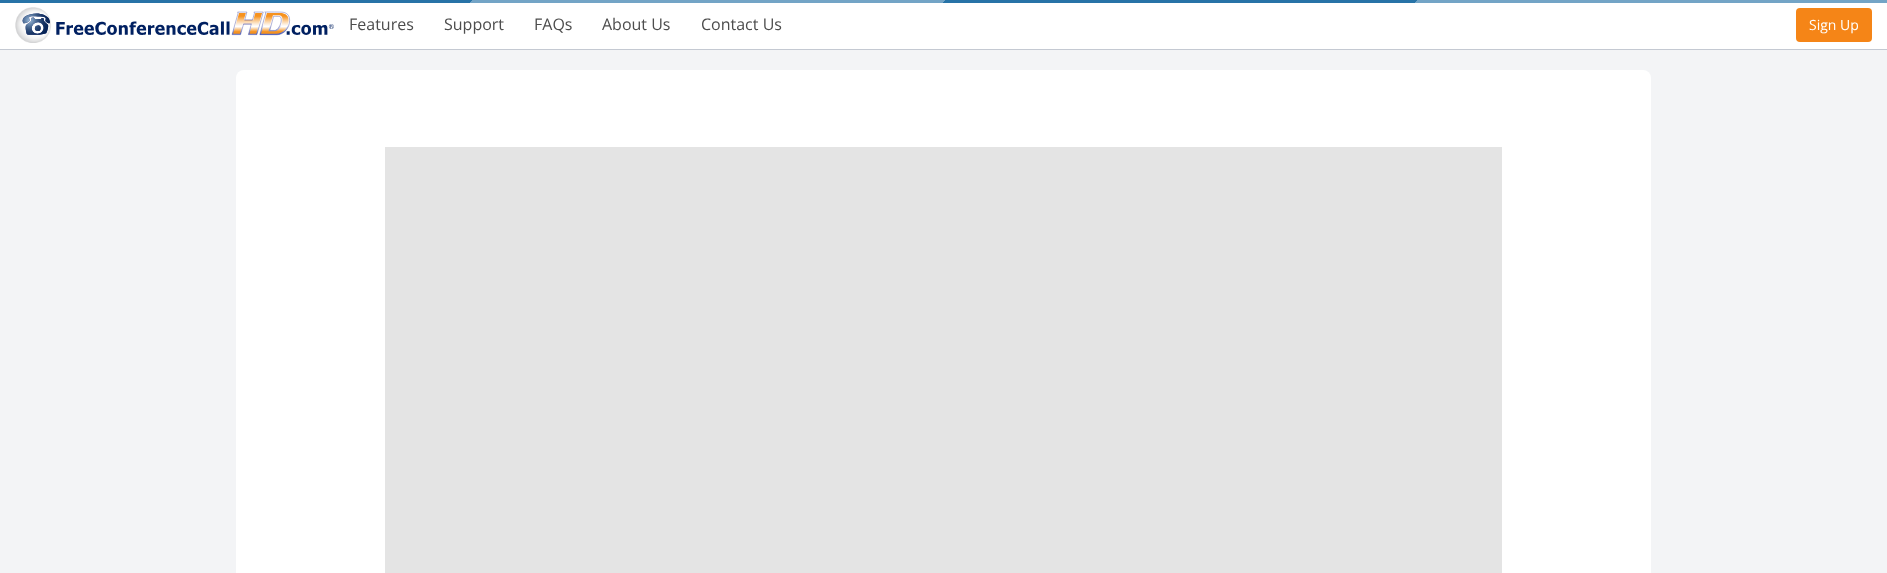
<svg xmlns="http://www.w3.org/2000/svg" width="1887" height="573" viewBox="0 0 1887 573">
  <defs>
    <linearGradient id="g1" gradientUnits="userSpaceOnUse" x1="1416" y1="474" x2="471" y2="-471"><stop offset="0.25" stop-color="#73a4c6"/><stop offset="0.25" stop-color="#2773a7"/><stop offset="0.5" stop-color="#2773a7"/><stop offset="0.5" stop-color="#73a4c6"/><stop offset="0.75" stop-color="#73a4c6"/><stop offset="0.75" stop-color="#2773a7"/><stop offset="1" stop-color="#2773a7"/></linearGradient>
  </defs>
  <rect width="100%" height="100%" fill="#f3f4f6"/>
  <rect x="0" y="0" width="1887" height="3" fill="url(#g1)"/>
  <rect x="0" y="3" width="1887" height="46" fill="#ffffff"/>
  <rect x="0" y="49" width="1887" height="1" fill="#c4c9d2"/>
  <image x="15" y="7" width="319" height="36" href="img1.png"/>
  <text x="349" y="30" font-family="Open Sans" font-size="16" fill="#4d4d4d">Features</text>
  <text x="444" y="30" font-family="Open Sans" font-size="16" fill="#4d4d4d">Support</text>
  <text x="534" y="30" font-family="Open Sans" font-size="16" fill="#4d4d4d">FAQs</text>
  <text x="602" y="30" font-family="Open Sans" font-size="16" fill="#4d4d4d">About Us</text>
  <text x="701" y="30" font-family="Open Sans" font-size="16" fill="#4d4d4d">Contact Us</text>
  <rect x="1796" y="8" width="76" height="34" rx="4" fill="#f58517"/>
  <text x="1809" y="30" font-family="Open Sans" font-size="14" fill="#ffffff">Sign Up</text>
  <rect x="236" y="70" width="1415" height="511" rx="8" fill="#ffffff"/>
  <rect x="385" y="147" width="1117" height="426" fill="#e4e4e4"/>
</svg>
